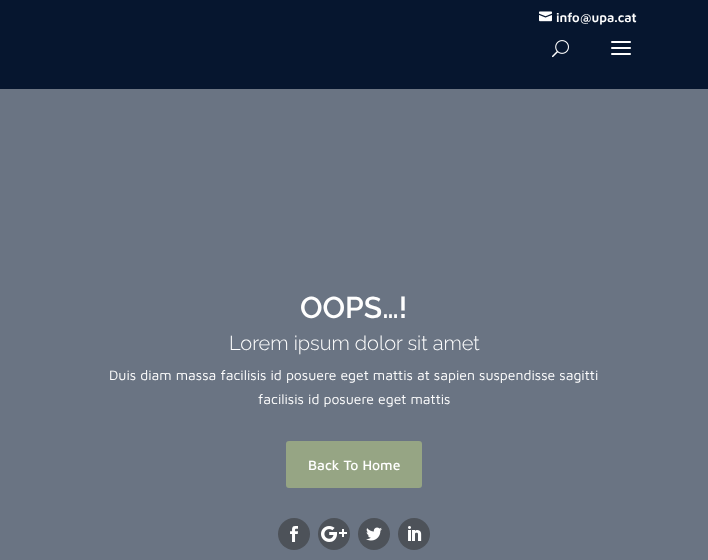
<svg xmlns="http://www.w3.org/2000/svg" width="708" height="560" viewBox="0 0 708 560">
  <rect width="100%" height="100%" fill="#6a7483"/>
  <rect x="0" y="0" width="708" height="89" fill="#06162f"/>
  <image x="552" y="40" width="17" height="18" href="img1.png"/>
  <image x="611" y="41" width="20" height="14" href="img2.png"/>
  <image x="539" y="11" width="13" height="11" href="img3.png"/>
  <text x="556" y="22" font-family="Maven Pro" font-size="13" font-weight="600" fill="#ffffff">info@upa.cat</text>
  <text x="300" y="318" font-family="Raleway" font-size="30" font-weight="600" fill="#ffffff">OOPS…!</text>
  <text x="229" y="350" font-family="Raleway" font-size="20" font-weight="300" fill="#ffffff">Lorem ipsum dolor sit amet</text>
  <text x="109" y="380" font-family="Maven Pro" font-size="14" fill="#ffffff">Duis diam massa facilisis id posuere eget mattis at sapien suspendisse sagitti</text>
  <text x="258" y="404" font-family="Maven Pro" font-size="14" fill="#ffffff">facilisis id posuere eget mattis</text>
  <rect x="287" y="442" width="134" height="45" rx="2" fill="#96a584" stroke="#96a584" stroke-width="2"/>
  <text x="308" y="470" font-family="Maven Pro" font-size="14" font-weight="500" fill="#ffffff">Back To Home</text>
  <circle cx="294" cy="534" r="16" fill="#4d5259"/>
  <image x="290" y="526" width="8" height="16" href="img4.png"/>
  <circle cx="334" cy="534" r="16" fill="#4d5259"/>
  <image x="321" y="526" width="26" height="16" href="img5.png"/>
  <circle cx="374" cy="534" r="16" fill="#4d5259"/>
  <image x="366" y="527" width="16" height="14" href="img6.png"/>
  <circle cx="414" cy="534" r="16" fill="#4d5259"/>
  <image x="408" y="526" width="14" height="15" href="img7.png"/>
</svg>
